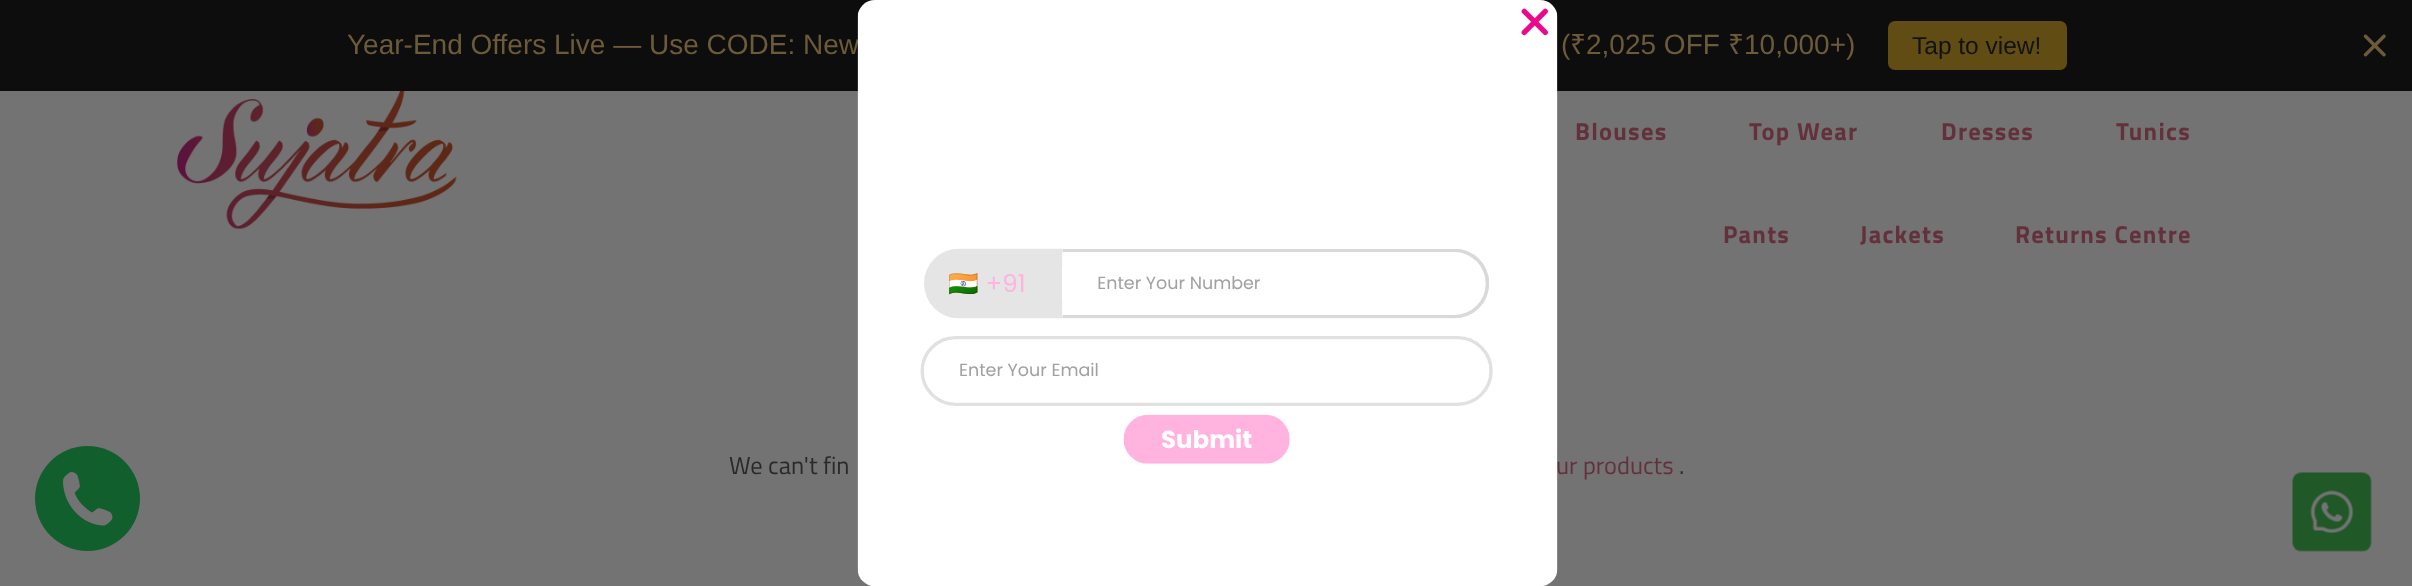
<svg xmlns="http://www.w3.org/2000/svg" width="2412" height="586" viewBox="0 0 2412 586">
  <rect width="100%" height="100%" fill="#808080"/>
  <rect x="0" y="0" width="2412" height="91" fill="#0f0f10"/>
  <text x="347" y="54" font-family="Liberation Sans" font-size="28" fill="#796540">Year-End Offers Live — Use CODE: New</text>
  <text x="1561" y="54" font-family="Liberation Sans" font-size="28" fill="#796540">(</text>
  <text x="1570" y="54" font-family="Noto Sans" font-size="28" fill="#796540">₹</text>
  <text x="1586" y="54" font-family="Liberation Sans" font-size="28" fill="#796540">2,025 OFF</text>
  <text x="1728" y="54" font-family="Noto Sans" font-size="28" fill="#796540">₹</text>
  <text x="1744" y="54" font-family="Liberation Sans" font-size="28" fill="#796540">10,000+)</text>
  <rect x="1888" y="21" width="179" height="49" rx="7" fill="#6c5617"/>
  <text x="1912" y="54" font-family="Liberation Sans" font-size="24.5" fill="#151616">Tap to view!</text>
  <image x="2363" y="34" width="23" height="23" href="img2.png"/>
  <image x="177" y="91" width="280" height="139" href="img3.png"/>
  <text x="1575" y="140" font-family="Titillium Web" font-size="24.5" font-weight="bold" letter-spacing="1.25" fill="#6f3743">Blouses</text>
  <text x="1749" y="140" font-family="Titillium Web" font-size="24.5" font-weight="bold" letter-spacing="1.25" fill="#6f3743">Top Wear</text>
  <text x="1941" y="140" font-family="Titillium Web" font-size="24.5" font-weight="bold" letter-spacing="1.25" fill="#6f3743">Dresses</text>
  <text x="2116" y="140" font-family="Titillium Web" font-size="24.5" font-weight="bold" letter-spacing="1.25" fill="#6f3743">Tunics</text>
  <text x="1723" y="243" font-family="Titillium Web" font-size="24.5" font-weight="bold" letter-spacing="1.25" fill="#6f3743">Pants</text>
  <text x="1860" y="243" font-family="Titillium Web" font-size="24.5" font-weight="bold" letter-spacing="1.25" fill="#6f3743">Jackets</text>
  <text x="2015" y="243" font-family="Titillium Web" font-size="24.5" font-weight="bold" letter-spacing="1.25" fill="#6f3743">Returns Centre</text>
  <circle cx="87.5" cy="498.5" r="52.5" fill="#136a33"/>
  <image x="63" y="472" width="50" height="54" href="img4.png"/>
  <text x="729" y="474" font-family="Titillium Web" font-size="24.5" fill="#2e2e2e">We can't fin</text>
  <text x="1556" y="474" font-family="Titillium Web" font-size="24.5" fill="#6f3743">ur products</text>
  <text x="1679" y="474" font-family="Titillium Web" font-size="24.5" fill="#2e2e2e">.</text>
  <image x="2292" y="472" width="80" height="80" href="img5.png"/>
  <image x="0" y="0" width="2412" height="586" href="img1.png"/>
</svg>
